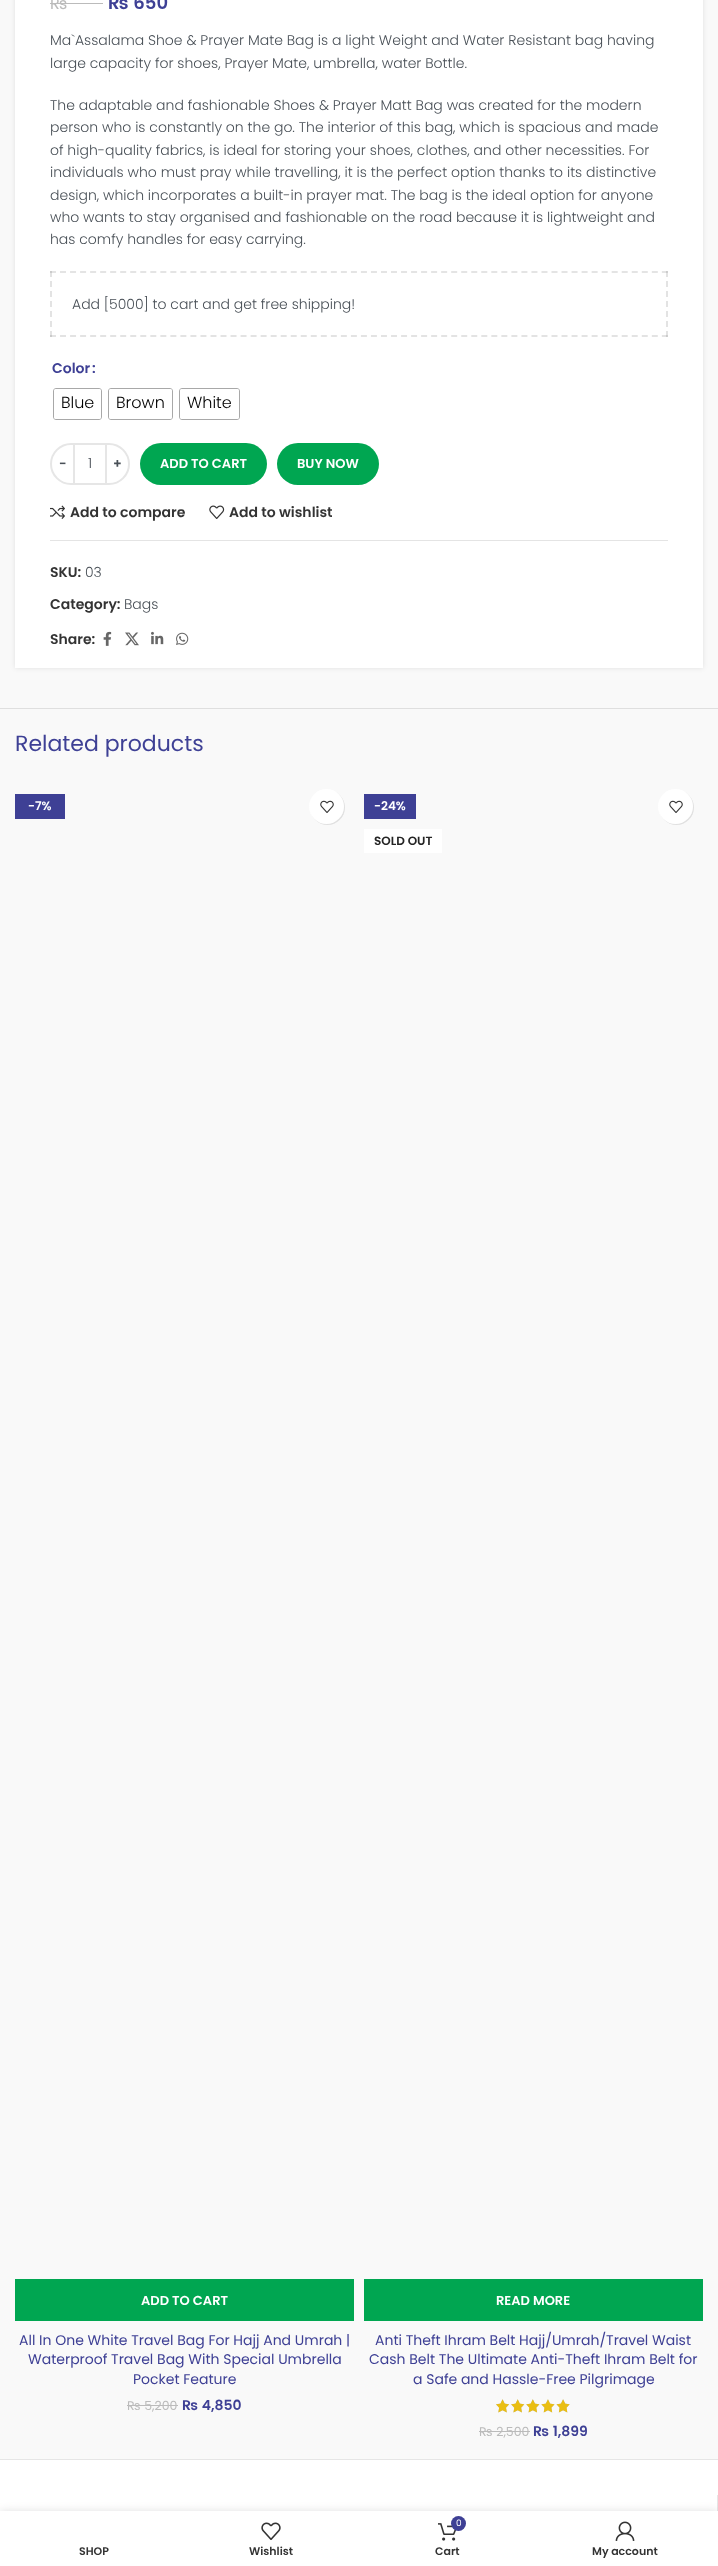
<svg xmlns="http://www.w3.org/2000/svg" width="718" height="2566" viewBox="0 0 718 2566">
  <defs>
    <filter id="blur1" x="-50%" y="-200%" width="200%" height="500%"><feGaussianBlur stdDeviation="2.5"/></filter>
    <filter id="blur2" x="-50%" y="-200%" width="200%" height="500%"><feGaussianBlur stdDeviation="0.5"/></filter>
    <filter id="blur3" x="-50%" y="-200%" width="200%" height="500%"><feGaussianBlur stdDeviation="4.5"/></filter>
  </defs>
  <rect width="100%" height="100%" fill="#ffffff"/>
  <rect x="0" y="0" width="718" height="2459" fill="#f9f9f9"/>
  <rect x="15" y="-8" width="688" height="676" fill="#000000" fill-opacity="0.1" filter="url(#blur1)"/>
  <rect x="15" y="0" width="688" height="668" fill="#ffffff"/>
  <text x="50" y="9" font-family="Poppins" font-size="16" fill="#bbbbbb">₨</text>
  <rect x="50" y="3" width="53" height="1" fill="#bbbbbb"/>
  <text x="108" y="9" font-family="Poppins" font-size="18" font-weight="600" fill="#3e4095">₨ 650</text>
  <text x="50" y="45" font-family="Poppins" font-size="14" font-weight="300" fill="#495057">Ma`Assalama Shoe &amp; Prayer Mate Bag is a light Weight and Water Resistant bag having</text>
  <text x="50" y="68" font-family="Poppins" font-size="14" font-weight="300" fill="#495057">large capacity for shoes, Prayer Mate, umbrella, water Bottle.</text>
  <text x="50" y="110" font-family="Poppins" font-size="14" font-weight="300" fill="#495057">The adaptable and fashionable Shoes &amp; Prayer Matt Bag was created for the modern</text>
  <text x="50" y="132" font-family="Poppins" font-size="14" font-weight="300" fill="#495057">person who is constantly on the go. The interior of this bag, which is spacious and made</text>
  <text x="50" y="155" font-family="Poppins" font-size="14" font-weight="300" fill="#495057">of high-quality fabrics, is ideal for storing your shoes, clothes, and other necessities. For</text>
  <text x="50" y="177" font-family="Poppins" font-size="14" font-weight="300" fill="#495057">individuals who must pray while travelling, it is the perfect option thanks to its distinctive</text>
  <text x="50" y="200" font-family="Poppins" font-size="14" font-weight="300" fill="#495057">design, which incorporates a built-in prayer mat. The bag is the ideal option for anyone</text>
  <text x="50" y="222" font-family="Poppins" font-size="14" font-weight="300" fill="#495057">who wants to stay organised and fashionable on the road because it is lightweight and</text>
  <text x="50" y="244" font-family="Poppins" font-size="14" font-weight="300" fill="#495057">has comfy handles for easy carrying.</text>
  <path d="M50 272H668" fill="none" stroke="#e4e4e4" stroke-width="2" stroke-dasharray="6 4.03"/>
  <path d="M667 271V337" fill="none" stroke="#000000" stroke-opacity="0.11" stroke-width="2" stroke-dasharray="6 4"/>
  <path d="M50 336H668" fill="none" stroke="#000000" stroke-opacity="0.11" stroke-width="2" stroke-dasharray="6 4.03"/>
  <path d="M51 271V337" fill="none" stroke="#000000" stroke-opacity="0.11" stroke-width="2" stroke-dasharray="6 4"/>
  <text x="72" y="309" font-family="Poppins" font-size="14" font-weight="300" fill="#495057">Add [5000] to cart and get free shipping!</text>
  <text x="52" y="373" font-family="Poppins" font-size="14" font-weight="600" fill="#3e4095">Color</text>
  <text x="92" y="373" font-family="Poppins" font-size="14" font-weight="600" fill="#3e4095">:</text>
  <rect x="53.5" y="388.5" width="48" height="31" rx="2.5" fill="none" stroke="#a8a8a8"/>
  <rect x="54" y="389" width="47" height="30" rx="2" fill="#ffffff"/>
  <text x="61" y="408" font-family="Poppins" font-size="16" font-weight="300" fill="#000000">Blue</text>
  <rect x="108.5" y="388.5" width="64" height="31" rx="2.5" fill="none" stroke="#a8a8a8"/>
  <rect x="109" y="389" width="63" height="30" rx="2" fill="#ffffff"/>
  <text x="116" y="408" font-family="Poppins" font-size="16" font-weight="300" fill="#000000">Brown</text>
  <rect x="179.5" y="388.5" width="60" height="31" rx="2.5" fill="none" stroke="#a8a8a8"/>
  <rect x="180" y="389" width="59" height="30" rx="2" fill="#ffffff"/>
  <text x="187" y="408" font-family="Poppins" font-size="16" font-weight="300" fill="#000000">White</text>
  <path d="M71 444H74V484H71C60 484 51 475 51 464C51 453 60 444 71 444Z" fill="none" stroke="#e6e6e6" stroke-width="2"/>
  <text x="59" y="468" font-family="Poppins" font-size="13" font-weight="600" fill="#495057">-</text>
  <rect x="75" y="443" width="30" height="2" fill="#e6e6e6"/>
  <rect x="75" y="483" width="30" height="2" fill="#e6e6e6"/>
  <text x="88" y="468" font-family="Poppins" font-size="14" font-weight="300" fill="#495057">1</text>
  <path d="M106 444H109C120 444 129 453 129 464C129 475 120 484 109 484H106Z" fill="none" stroke="#e6e6e6" stroke-width="2"/>
  <text x="113" y="468" font-family="Poppins" font-size="13" font-weight="600" fill="#495057">+</text>
  <rect x="140" y="443" width="127" height="42" rx="21" fill="#00a651"/>
  <text x="160" y="468" font-family="Poppins" font-size="13" font-weight="600" fill="#ffffff">ADD TO CART</text>
  <rect x="277" y="443" width="102" height="42" rx="21" fill="#00a651"/>
  <text x="297" y="468" font-family="Poppins" font-size="13" font-weight="600" fill="#ffffff">BUY NOW</text>
  <image x="50" y="505" width="15" height="14" href="img1.png"/>
  <text x="70" y="517" font-family="Poppins" font-size="14" font-weight="600" fill="#333333">Add to compare</text>
  <image x="209" y="505" width="16" height="14" href="img2.png"/>
  <text x="229" y="517" font-family="Poppins" font-size="14" font-weight="600" fill="#333333">Add to wishlist</text>
  <rect x="50" y="540" width="618" height="1" fill="#e4e4e4"/>
  <text x="50" y="577" font-family="Poppins" font-size="14" font-weight="600" fill="#333333">SKU:</text>
  <text x="85" y="577" font-family="Poppins" font-size="14" font-weight="300" fill="#495057">03</text>
  <text x="50" y="609" font-family="Poppins" font-size="14" font-weight="600" fill="#333333">Category:</text>
  <text x="124" y="609" font-family="Poppins" font-size="14" font-weight="300" fill="#495057">Bags</text>
  <text x="50" y="644" font-family="Poppins" font-size="14" font-weight="600" fill="#333333">Share:</text>
  <image x="103" y="631" width="9" height="15" href="img3.png"/>
  <image x="125" y="632" width="14" height="14" href="img4.png"/>
  <image x="151" y="631" width="13" height="14" href="img5.png"/>
  <image x="176" y="632" width="13" height="13" href="img6.png"/>
  <rect x="0" y="708" width="718" height="1" fill="#dfdfdf"/>
  <text x="15" y="751" font-family="Poppins" font-size="22" fill="#3e4095">Related products</text>
  <rect x="15" y="794" width="50" height="25" fill="#3e4095"/>
  <text x="28" y="810" font-family="Poppins" font-size="12" font-weight="600" fill="#ffffff">-7%</text>
  <rect x="310" y="790" width="35" height="35" rx="17.5" fill="#000000" fill-opacity="0.1" filter="url(#blur2)"/>
  <circle cx="326.5" cy="806.5" r="17.5" fill="#ffffff"/>
  <image x="320" y="800" width="14" height="13" href="img7.png"/>
  <rect x="15" y="2279" width="339" height="42" fill="#00a651"/>
  <text x="141" y="2305" font-family="Poppins" font-size="13" font-weight="600" fill="#ffffff">ADD TO CART</text>
  <text x="19" y="2345" font-family="Poppins" font-size="14" fill="#3e4095">All In One White Travel Bag For Hajj And Umrah |</text>
  <text x="28" y="2364" font-family="Poppins" font-size="14" fill="#3e4095">Waterproof Travel Bag With Special Umbrella</text>
  <text x="133" y="2384" font-family="Poppins" font-size="14" fill="#3e4095">Pocket Feature</text>
  <text x="127" y="2410" font-family="Poppins" font-size="12.5" fill="#bbbbbb">₨ 5,200</text>
  <rect x="127" y="2405" width="51" height="1" fill="#bbbbbb"/>
  <text x="182" y="2410" font-family="Poppins" font-size="14" font-weight="600" fill="#3e4095">₨ 4,850</text>
  <rect x="364" y="794" width="52" height="25" fill="#3e4095"/>
  <text x="374" y="810" font-family="Poppins" font-size="12" font-weight="600" fill="#ffffff">-24%</text>
  <rect x="364" y="829" width="78" height="24" fill="#ffffff"/>
  <text x="374" y="845" font-family="Poppins" font-size="12" font-weight="600" fill="#242424">SOLD OUT</text>
  <rect x="659" y="790" width="35" height="35" rx="17.5" fill="#000000" fill-opacity="0.1" filter="url(#blur2)"/>
  <circle cx="675.5" cy="806.5" r="17.5" fill="#ffffff"/>
  <image x="669" y="800" width="14" height="13" href="img7.png"/>
  <rect x="364" y="2279" width="339" height="42" fill="#00a651"/>
  <text x="496" y="2305" font-family="Poppins" font-size="13" font-weight="600" fill="#ffffff">READ MORE</text>
  <text x="375" y="2345" font-family="Poppins" font-size="14" fill="#3e4095">Anti Theft Ihram Belt Hajj/Umrah/Travel Waist</text>
  <text x="369" y="2364" font-family="Poppins" font-size="14" fill="#3e4095">Cash Belt The Ultimate Anti-Theft Ihram Belt for</text>
  <text x="413" y="2384" font-family="Poppins" font-size="14" fill="#3e4095">a Safe and Hassle-Free Pilgrimage</text>
  <image x="496" y="2399" width="74" height="14" href="img8.png"/>
  <image x="496" y="2399" width="74" height="14" href="img9.png"/>
  <text x="479" y="2436" font-family="Poppins" font-size="12.5" fill="#bbbbbb">₨ 2,500</text>
  <rect x="479" y="2431" width="51" height="1" fill="#bbbbbb"/>
  <text x="533" y="2436" font-family="Poppins" font-size="14" font-weight="600" fill="#3e4095">₨ 1,899</text>
  <rect x="0" y="2459" width="718" height="1" fill="#e6e6e6"/>
  <rect x="717" y="2495" width="1" height="16" fill="#e6e6e6"/>
  <rect x="0" y="2511" width="718" height="55" fill="#000000" fill-opacity="0.12" filter="url(#blur3)"/>
  <rect x="0" y="2511" width="718" height="55" fill="#ffffff"/>
  <text x="79" y="2555" font-family="Poppins" font-size="11" font-weight="600" fill="#333333">SHOP</text>
  <image x="261" y="2522" width="20" height="18" href="img10.png"/>
  <text x="249" y="2555" font-family="Poppins" font-size="11" font-weight="600" fill="#333333">Wishlist</text>
  <image x="438" y="2523" width="19" height="18" href="img11.png"/>
  <circle cx="458.5" cy="2523.5" r="7.5" fill="#3e4095"/>
  <text x="456" y="2526" font-family="Poppins" font-size="9" fill="#ffffff">0</text>
  <text x="435" y="2555" font-family="Poppins" font-size="11" font-weight="600" fill="#333333">Cart</text>
  <image x="615" y="2521" width="20" height="20" href="img12.png"/>
  <text x="592" y="2555" font-family="Poppins" font-size="11" font-weight="600" fill="#333333">My account</text>
</svg>
